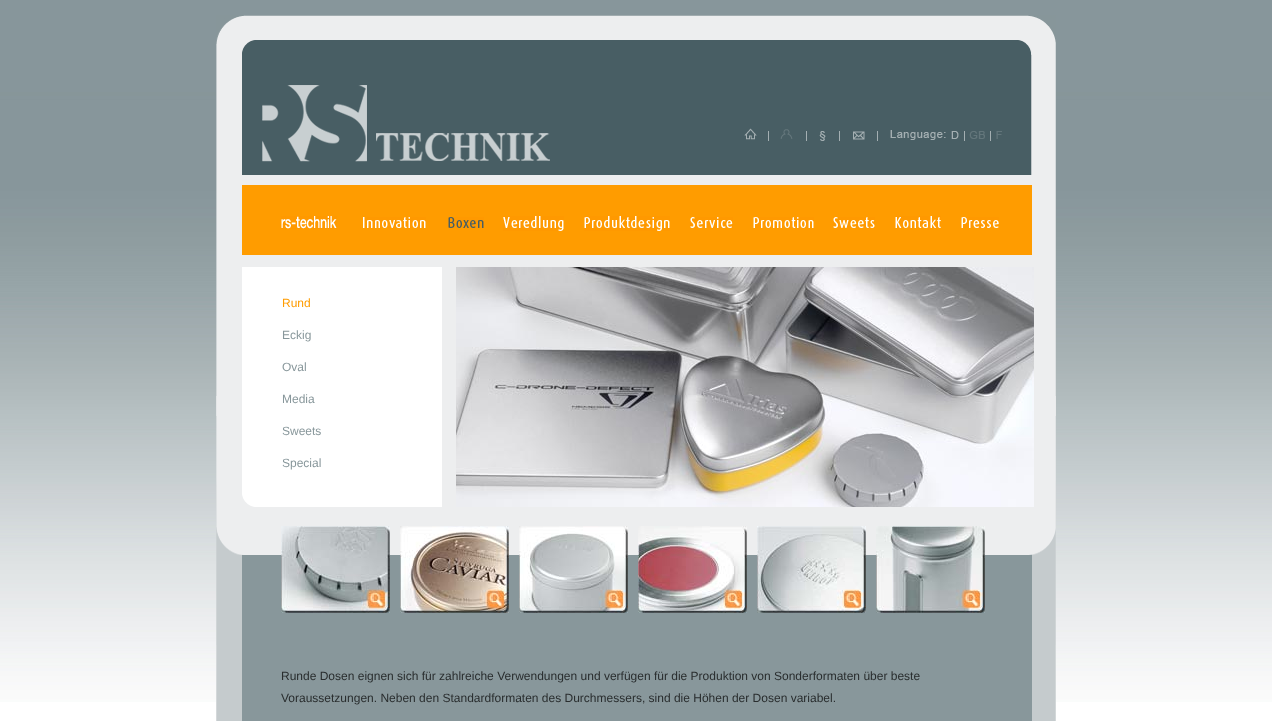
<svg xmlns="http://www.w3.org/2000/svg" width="1272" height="721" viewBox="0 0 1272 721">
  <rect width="100%" height="100%" fill="#ffffff"/>
  <image x="0" y="0" width="1272" height="702" href="img1.png"/>
  <image x="216" y="15" width="840" height="630" href="img2.png"/>
  <image x="262" y="85" width="288" height="77" href="img3.png"/>
  <image x="744" y="128" width="13" height="12" href="img4.png"/>
  <rect x="768" y="131" width="1" height="10" fill="#a4afb2"/>
  <image x="780" y="129" width="13" height="10" href="img5.png"/>
  <rect x="806" y="131" width="1" height="10" fill="#a4afb2"/>
  <image x="819" y="131" width="7" height="10" href="img6.png"/>
  <rect x="839" y="131" width="1" height="10" fill="#a4afb2"/>
  <image x="853" y="131" width="12" height="9" href="img7.png"/>
  <rect x="877" y="131" width="1" height="10" fill="#a4afb2"/>
  <image x="890" y="130" width="56" height="10" href="img8.png"/>
  <image x="951" y="131" width="8" height="8" href="img9.png"/>
  <rect x="964" y="131" width="1" height="10" fill="#a4afb2"/>
  <image x="969" y="131" width="16" height="8" href="img10.png"/>
  <rect x="990" y="131" width="1" height="10" fill="#a4afb2"/>
  <image x="996" y="131" width="6" height="8" href="img11.png"/>
  <rect x="242" y="185" width="790" height="70" fill="#ff9c00"/>
  <image x="281" y="216" width="56" height="13" href="img12.png"/>
  <image x="363" y="217" width="63" height="11" href="img13.png"/>
  <image x="448" y="217" width="36" height="11" href="img14.png"/>
  <image x="503" y="216" width="61" height="15" href="img15.png"/>
  <image x="584" y="216" width="86" height="15" href="img16.png"/>
  <image x="690" y="217" width="43" height="11" href="img17.png"/>
  <image x="753" y="217" width="61" height="11" href="img18.png"/>
  <image x="833" y="217" width="42" height="11" href="img19.png"/>
  <image x="895" y="216" width="46" height="12" href="img20.png"/>
  <image x="961" y="217" width="38" height="11" href="img21.png"/>
  <image x="242" y="267" width="200" height="240" href="img22.png"/>
  <text x="282" y="307" font-family="Liberation Sans" font-size="12" fill="#ff9c00">Rund</text>
  <text x="282" y="339" font-family="Liberation Sans" font-size="12" fill="#88979b">Eckig</text>
  <text x="282" y="371" font-family="Liberation Sans" font-size="12" fill="#88979b">Oval</text>
  <text x="282" y="403" font-family="Liberation Sans" font-size="12" fill="#88979b">Media</text>
  <text x="282" y="435" font-family="Liberation Sans" font-size="12" fill="#88979b">Sweets</text>
  <text x="282" y="467" font-family="Liberation Sans" font-size="12" fill="#88979b">Special</text>
  <image x="456" y="267" width="578" height="240" href="img23.png"/>
  <image x="281" y="526" width="109" height="87" href="img24.png"/>
  <image x="400" y="526" width="109" height="87" href="img25.png"/>
  <image x="519" y="526" width="109" height="87" href="img26.png"/>
  <image x="638" y="526" width="109" height="87" href="img27.png"/>
  <image x="757" y="526" width="109" height="87" href="img28.png"/>
  <image x="876" y="526" width="109" height="87" href="img29.png"/>
  <image x="216" y="645" width="840" height="76" href="img30.png"/>
  <text x="281" y="680" font-family="Liberation Sans" font-size="12" fill="#292d2e">Runde Dosen eignen sich für zahlreiche Verwendungen und verfügen für die Produktion von Sonderformaten über beste</text>
  <text x="281" y="702" font-family="Liberation Sans" font-size="12" fill="#292d2e">Voraussetzungen. Neben den Standardformaten des Durchmessers, sind die Höhen der Dosen variabel.</text>
</svg>
